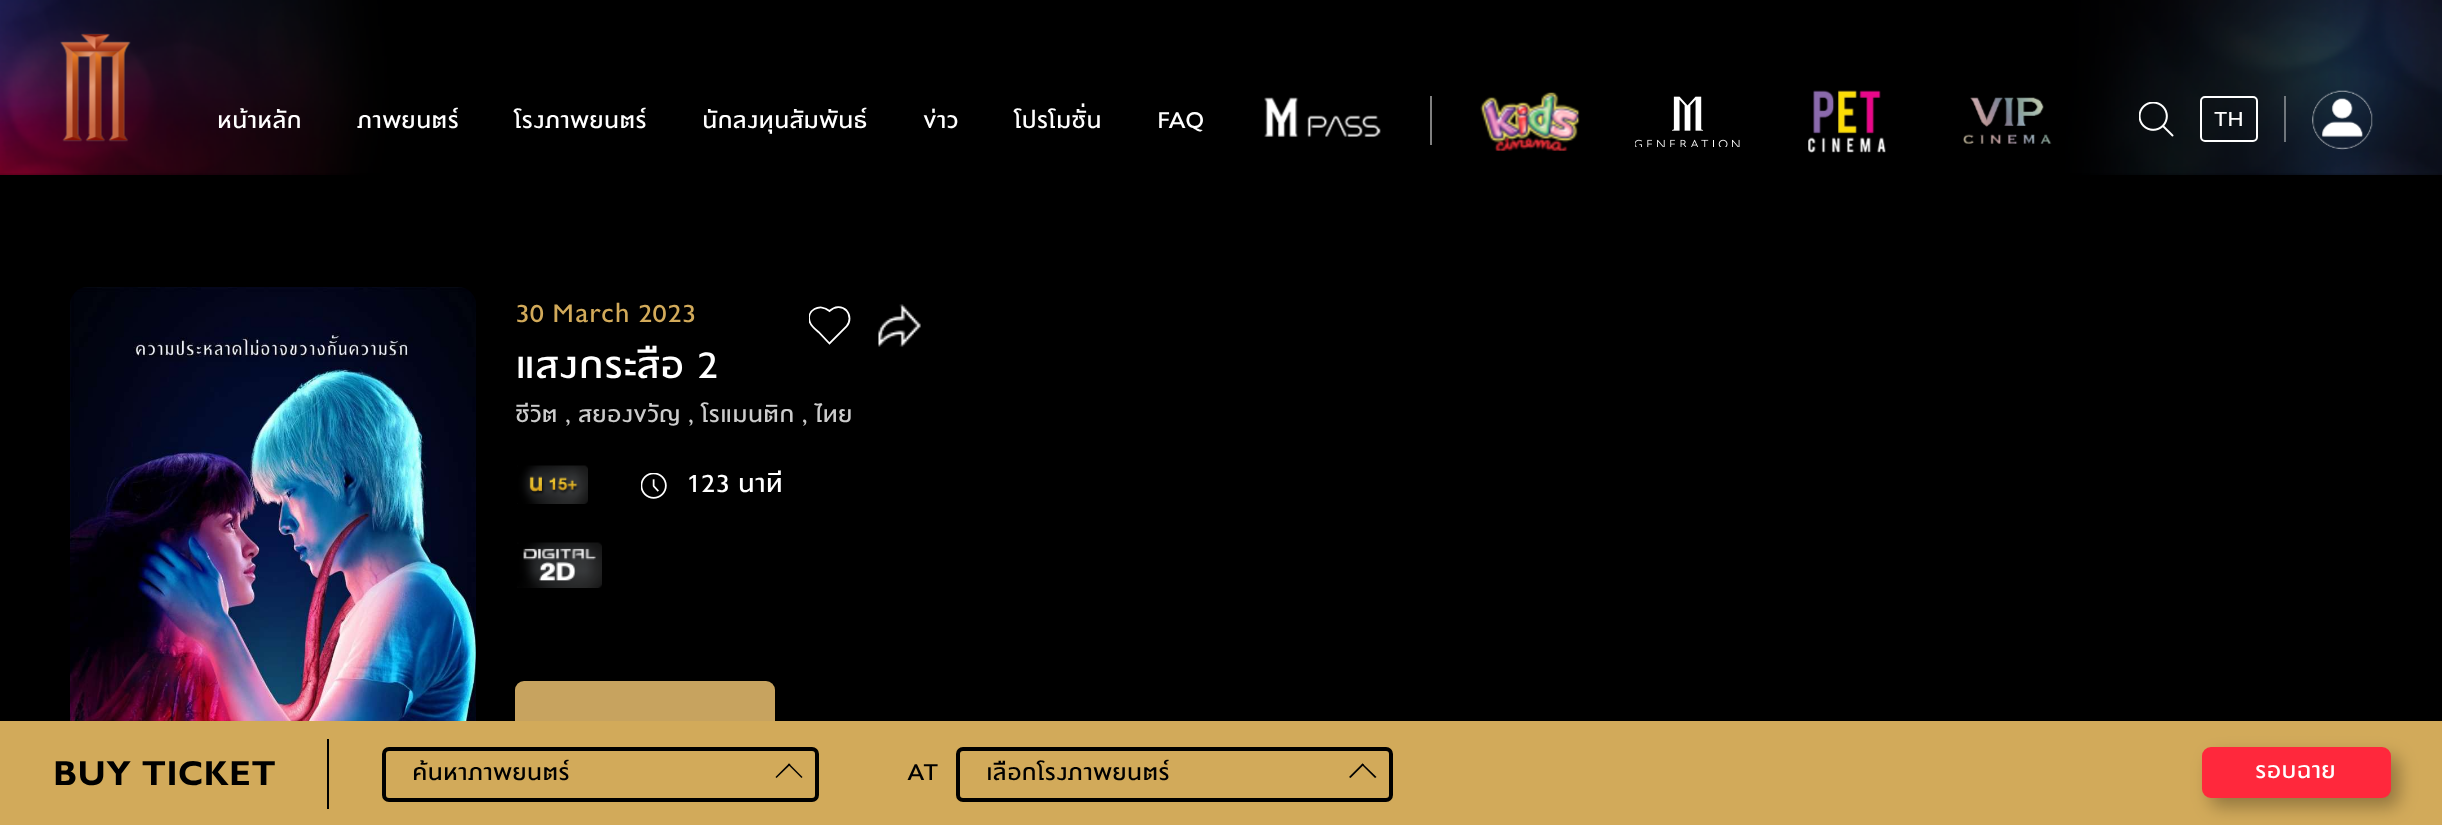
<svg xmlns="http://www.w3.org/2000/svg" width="2442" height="825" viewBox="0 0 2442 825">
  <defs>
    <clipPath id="clip1"><rect x="809" y="306" width="42" height="39"/></clipPath>
    <filter id="blur1" x="-50%" y="-200%" width="200%" height="500%"><feGaussianBlur stdDeviation="9"/></filter>
  </defs>
  <rect width="100%" height="100%" fill="#000000"/>
  <image x="0" y="0" width="2442" height="175" href="img1.png"/>
  <image x="60" y="33" width="71" height="109" href="img2.png"/>
  <text x="217" y="128" font-family="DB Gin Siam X" font-size="31.5" fill="#ffffff">หน้าหลัก</text>
  <text x="357" y="128" font-family="DB Gin Siam X" font-size="31.5" fill="#ffffff">ภาพยนตร์</text>
  <text x="514" y="128" font-family="DB Gin Siam X" font-size="31.5" fill="#ffffff">โรงภาพยนตร์</text>
  <text x="702" y="128" font-family="DB Gin Siam X" font-size="31.5" fill="#ffffff">นักลงทุนสัมพันธ์</text>
  <text x="923" y="128" font-family="DB Gin Siam X" font-size="31.5" fill="#ffffff">ข่าว</text>
  <text x="1014" y="128" font-family="DB Gin Siam X" font-size="31.5" fill="#ffffff">โปรโมชั่น</text>
  <text x="1157" y="128" font-family="DB Gin Siam X" font-size="31.5" fill="#ffffff">FAQ</text>
  <image x="1264" y="97" width="117" height="40" href="img3.png"/>
  <rect x="1430" y="96" width="2" height="49" fill="#808080"/>
  <image x="1480" y="92" width="100" height="59" href="img4.png"/>
  <image x="1635" y="96" width="105" height="51" href="img5.png"/>
  <image x="1808" y="90" width="78" height="63" href="img6.png"/>
  <image x="1963" y="97" width="89" height="47" href="img7.png"/>
  <image x="2139" y="102" width="35" height="35" href="img8.png"/>
  <rect x="2201" y="97" width="56" height="44" rx="4" fill="none" stroke="#ffffff" stroke-width="2"/>
  <text x="2214" y="126" font-family="DB Gin Siam X" font-size="28" fill="#ffffff">TH</text>
  <rect x="2284" y="96" width="2" height="46" fill="#ffffff" fill-opacity="0.4"/>
  <image x="2312" y="90" width="61" height="60" href="img9.png"/>
  <image x="70" y="287" width="406" height="434" href="img10.png"/>
  <text x="515" y="322" font-family="DB Gin Siam X" font-size="35" fill="#d2aa5a">30 March 2023</text>
  <text x="515" y="378" font-family="DB Gin Siam X" font-size="52.5" fill="#ffffff">แสงกระสือ 2</text>
  <text x="515" y="422" font-family="DB Gin Siam X" font-size="31.5" fill="#cccccc">ชีวิต , สยองขวัญ , โรแมนติก , ไทย</text>
  <image x="517" y="465" width="71" height="39" href="img11.png"/>
  <image x="641" y="473" width="26" height="26" href="img12.png"/>
  <text x="686" y="492" font-family="DB Gin Siam X" font-size="35" fill="#ffffff">123 นาที</text>
  <image x="517" y="542" width="85" height="46" href="img13.png"/>
  <rect x="515" y="681" width="260" height="84" rx="9" fill="#c7a35f"/>
  <g clip-path="url(#clip1)">
    <path d="M846.5 310.5C841.5 305.5 834.5 306.5 829.5 311C820 302.5 805.5 310.5 810 322.5C811.5 326.5 815.5 329.5 818.5 332L829.5 343.5L846.5 326.5C850.5 322 850.5 315 846.5 310.5Z" fill="none" stroke="#ffffff" stroke-width="1.8"/>
  </g>
  <image x="878" y="304" width="43" height="43" href="img14.png"/>
  <rect x="0" y="721" width="2442" height="104" fill="#d2aa5a"/>
  <text x="53" y="785" font-family="DB Gin Siam X" font-size="47.25" font-weight="bold" fill="#000000">BUY TICKET</text>
  <rect x="327" y="739" width="2" height="70" fill="#000000"/>
  <rect x="384" y="749" width="433" height="51" rx="5" fill="none" stroke="#000000" stroke-width="4"/>
  <text x="412" y="780" font-family="DB Gin Siam X" font-size="31.5" fill="#000000">ค้นหาภาพยนตร์</text>
  <path d="M776.5 778L775.5 777L789 763.5L790.5 764.5Z" fill="#000000"/>
  <path d="M801.5 778L788 764.5L789 763.5L802.5 777Z" fill="#000000"/>
  <text x="907" y="780" font-family="DB Gin Siam X" font-size="31.5" fill="#000000">AT</text>
  <rect x="958" y="749" width="433" height="51" rx="5" fill="none" stroke="#000000" stroke-width="4"/>
  <text x="986" y="780" font-family="DB Gin Siam X" font-size="31.5" fill="#000000">เลือกโรงภาพยนตร์</text>
  <path d="M1350.5 778L1349 777L1362.5 763.5L1364 764.5Z" fill="#000000"/>
  <path d="M1375 778L1361.5 764.5L1362.5 763.5L1376.5 777Z" fill="#000000"/>
  <rect x="2210" y="756" width="189" height="51" rx="9" fill="#000000" fill-opacity="0.3" filter="url(#blur1)"/>
  <rect x="2203" y="748" width="187" height="49" rx="8" fill="#ff283c" stroke="#ff283c" stroke-width="2"/>
  <text x="2255" y="778" font-family="DB Gin Siam X" font-size="31.5" fill="#ffffff">รอบฉาย</text>
</svg>
